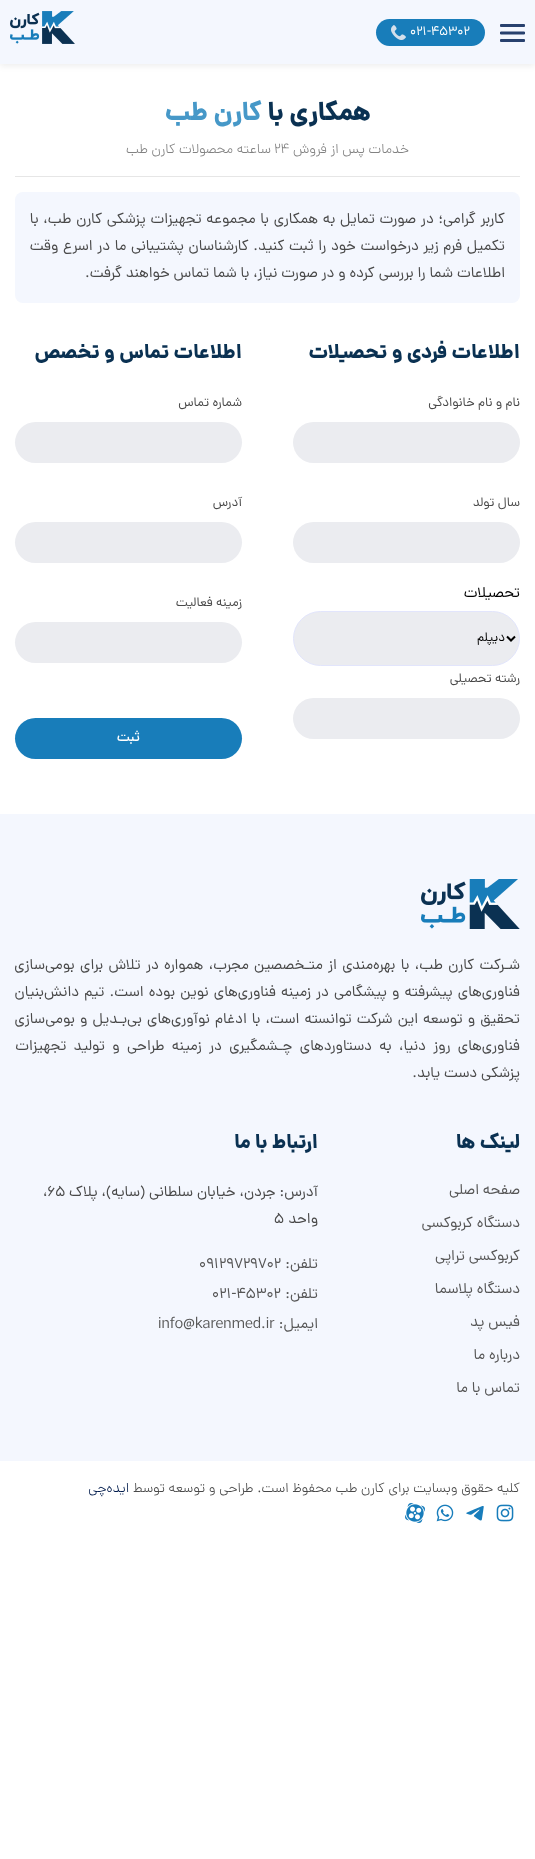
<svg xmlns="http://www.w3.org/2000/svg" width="535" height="1859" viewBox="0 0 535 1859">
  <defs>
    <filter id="blur1" x="-50%" y="-200%" width="200%" height="500%"><feGaussianBlur stdDeviation="3"/></filter>
    <clipPath id="clip1"><rect x="500" y="20" width="25" height="25"/></clipPath>
  </defs>
  <rect width="100%" height="100%" fill="#ffffff"/>
  <rect x="0" y="2" width="535" height="64" fill="#000000" fill-opacity="0.07" filter="url(#blur1)"/>
  <rect x="0" y="0" width="535" height="64" fill="#f4f7fe"/>
  <g clip-path="url(#clip1)">
    <path d="M501 25.5H524M501 33H524M501 40.5H524" fill="none" stroke="#28416e" stroke-width="2.8" stroke-linecap="round"/>
  </g>
  <rect x="376" y="19" width="109" height="27" rx="13.5" fill="#187dba"/>
  <text x="410" y="35" font-family="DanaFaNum" font-size="13" fill="#ffffff">021-45302</text>
  <image x="391" y="25" width="15" height="15" href="img1.png"/>
  <image x="10" y="11" width="65" height="33" href="img2.png"/>
  <rect x="15" y="176" width="505" height="1" fill="#e6e6e6"/>
  <text x="371" y="120" font-family="DanaFaNum" font-size="26" font-weight="800" direction="rtl" fill="#0a3152">همکاری با</text>
  <text x="262" y="120" font-family="DanaFaNum" font-size="26" font-weight="800" direction="rtl" fill="#4698c8">کارن طب</text>
  <text x="409" y="153" font-family="DanaFaNum" font-size="14" font-weight="300" direction="rtl" fill="#828282">خدمات پس از فروش</text>
  <text x="274" y="153" font-family="DanaFaNum" font-size="14" font-weight="300" fill="#828282">24</text>
  <text x="271" y="153" font-family="DanaFaNum" font-size="14" font-weight="300" direction="rtl" fill="#828282">ساعته محصولات کارن طب</text>
  <rect x="15" y="192" width="505" height="111" rx="8" fill="#f4f7fe"/>
  <text x="505" y="223" word-spacing="0.9" font-family="DanaFaNum" font-size="15" direction="rtl" fill="#494949">کاربر گرامی؛ در صورت تمایل به همکاری با مجموعه تجهیزات پزشکی کارن طب، با</text>
  <text x="505" y="250" word-spacing="0.75" font-family="DanaFaNum" font-size="15" direction="rtl" fill="#494949">تکمیل فرم زیر درخواست خود را ثبت کنید. کارشناسان پشتیبانی ما در اسرع وقت</text>
  <text x="505" y="277" font-family="DanaFaNum" font-size="15" direction="rtl" fill="#494949">اطلاعات شما را بررسی کرده و در صورت نیاز، با شما تماس خواهند گرفت.</text>
  <text x="520" y="358" font-family="DanaFaNum" font-size="20" font-weight="800" direction="rtl" fill="#0a3152">اطلاعات فردی و تحصیلات</text>
  <text x="520" y="406" font-family="DanaFaNum" font-size="13" direction="rtl" fill="#494949">نام و نام خانوادگی</text>
  <rect x="293" y="422" width="227" height="41" rx="20.5" fill="#ebecf0"/>
  <text x="520" y="506" font-family="DanaFaNum" font-size="13" direction="rtl" fill="#494949">سال تولد</text>
  <rect x="293" y="522" width="227" height="41" rx="20.5" fill="#ebecf0"/>
  <text x="520" y="597" font-family="DanaFaNum" font-size="15" direction="rtl" fill="#000000">تحصیلات</text>
  <rect x="293.5" y="611.5" width="226" height="54" rx="27" fill="#ebecf0" stroke="#e2e5fc"/>
  <path d="M507 636.5L511 640.5L515 636.5" fill="none" stroke="#000000" stroke-width="2"/>
  <text x="505" y="641" font-family="DanaFaNum" font-size="13" direction="rtl" fill="#000000">دیپلم</text>
  <text x="520" y="682" font-family="DanaFaNum" font-size="13" direction="rtl" fill="#494949">رشته تحصیلی</text>
  <rect x="293" y="698" width="227" height="41" rx="20.5" fill="#ebecf0"/>
  <text x="242" y="358" font-family="DanaFaNum" font-size="20" font-weight="800" direction="rtl" fill="#0a3152">اطلاعات تماس و تخصص</text>
  <text x="242" y="406" font-family="DanaFaNum" font-size="13" direction="rtl" fill="#494949">شماره تماس</text>
  <rect x="15" y="422" width="227" height="41" rx="20.5" fill="#ebecf0"/>
  <text x="242" y="506" font-family="DanaFaNum" font-size="13" direction="rtl" fill="#494949">آدرس</text>
  <rect x="15" y="522" width="227" height="41" rx="20.5" fill="#ebecf0"/>
  <text x="242" y="606" font-family="DanaFaNum" font-size="13" direction="rtl" fill="#494949">زمینه فعالیت</text>
  <rect x="15" y="622" width="227" height="41" rx="20.5" fill="#ebecf0"/>
  <rect x="15" y="718" width="227" height="41" rx="20.5" fill="#187dba"/>
  <text x="140" y="741" font-family="DanaFaNum" font-size="14" font-weight="500" direction="rtl" fill="#ffffff">ثبت</text>
  <rect x="0" y="814" width="535" height="647" fill="#f4f7fe"/>
  <image x="421" y="879" width="99" height="50" href="img3.png"/>
  <text x="520" y="969" word-spacing="1.5" font-family="DanaFaNum" font-size="15" direction="rtl" fill="#494949">شـرکت کارن طب، با بهره‌مندی از متـخصصین مجرب، همواره در تلاش برای بومی‌سازی</text>
  <text x="520" y="996" word-spacing="1.25" font-family="DanaFaNum" font-size="15" direction="rtl" fill="#494949">فناوری‌های پیشرفته و پیشگامی در زمینه فناوری‌های نوین بوده است. تیم دانش‌بنیان</text>
  <text x="520" y="1023" word-spacing="1.25" font-family="DanaFaNum" font-size="15" direction="rtl" fill="#494949">تحقیق و توسعه این شرکت توانسته است، با ادغام نوآوری‌های بی‌بـدیل و بومی‌سازی</text>
  <text x="520" y="1050" word-spacing="3.5" font-family="DanaFaNum" font-size="15" direction="rtl" fill="#494949">فناوری‌های روز دنیا، به دستاوردهای چـشمگیری در زمینه طراحی و تولید تجهیزات</text>
  <text x="520" y="1077" font-family="DanaFaNum" font-size="15" direction="rtl" fill="#494949">پزشکی دست یابد.</text>
  <text x="520" y="1148" font-family="DanaFaNum" font-size="20" font-weight="800" direction="rtl" fill="#0a3152">لینک ها</text>
  <text x="520" y="1194" font-family="DanaFaNum" font-size="15" direction="rtl" fill="#565656">صفحه اصلی</text>
  <text x="520" y="1227" font-family="DanaFaNum" font-size="15" direction="rtl" fill="#565656">دستگاه کربوکسی</text>
  <text x="520" y="1260" font-family="DanaFaNum" font-size="15" direction="rtl" fill="#565656">کربوکسی تراپی</text>
  <text x="520" y="1293" font-family="DanaFaNum" font-size="15" direction="rtl" fill="#565656">دستگاه پلاسما</text>
  <text x="520" y="1326" font-family="DanaFaNum" font-size="15" direction="rtl" fill="#565656">فیس پد</text>
  <text x="520" y="1359" font-family="DanaFaNum" font-size="15" direction="rtl" fill="#565656">درباره ما</text>
  <text x="520" y="1392" font-family="DanaFaNum" font-size="15" direction="rtl" fill="#565656">تماس با ما</text>
  <text x="318" y="1148" font-family="DanaFaNum" font-size="20" font-weight="800" direction="rtl" fill="#0a3152">ارتباط با ما</text>
  <text x="318" y="1196" font-family="DanaFaNum" font-size="15" direction="rtl" fill="#494949">آدرس: جردن، خیابان سلطانی (سایه)، پلاک</text>
  <text x="43" y="1196" font-family="DanaFaNum" font-size="15" fill="#494949">،65</text>
  <text x="318" y="1223" font-family="DanaFaNum" font-size="15" direction="rtl" fill="#494949">واحد</text>
  <text x="274" y="1223" font-family="DanaFaNum" font-size="15" fill="#494949">5</text>
  <text x="318" y="1268" font-family="DanaFaNum" font-size="15" direction="rtl" fill="#565656">تلفن:</text>
  <text x="199" y="1268" font-family="DanaFaNum" font-size="15" fill="#565656">09129729702</text>
  <text x="318" y="1298" font-family="DanaFaNum" font-size="15" direction="rtl" fill="#565656">تلفن:</text>
  <text x="212" y="1298" font-family="DanaFaNum" font-size="15" fill="#565656">021-45302</text>
  <text x="318" y="1328" font-family="DanaFaNum" font-size="15" direction="rtl" fill="#565656">ایمیل:</text>
  <text x="158" y="1328" font-family="DanaFaNum" font-size="15" fill="#565656">info@karenmed.ir</text>
  <text x="520" y="1492" font-family="DanaFaNum" font-size="14" font-weight="300" direction="rtl" fill="#494949">کلیه حقوق وبسایت برای کارن طب محفوظ است. طراحی و توسعه توسط</text>
  <text x="129" y="1492" font-family="DanaFaNum" font-size="14" font-weight="300" direction="rtl" fill="#001b4c">ایده‌چی</text>
  <image x="496" y="1504" width="18" height="18" href="img4.png"/>
  <image x="466" y="1506" width="18" height="15" href="img5.png"/>
  <image x="436" y="1504" width="18" height="18" href="img6.png"/>
  <image x="405" y="1503" width="20" height="20" href="img7.png"/>
</svg>
